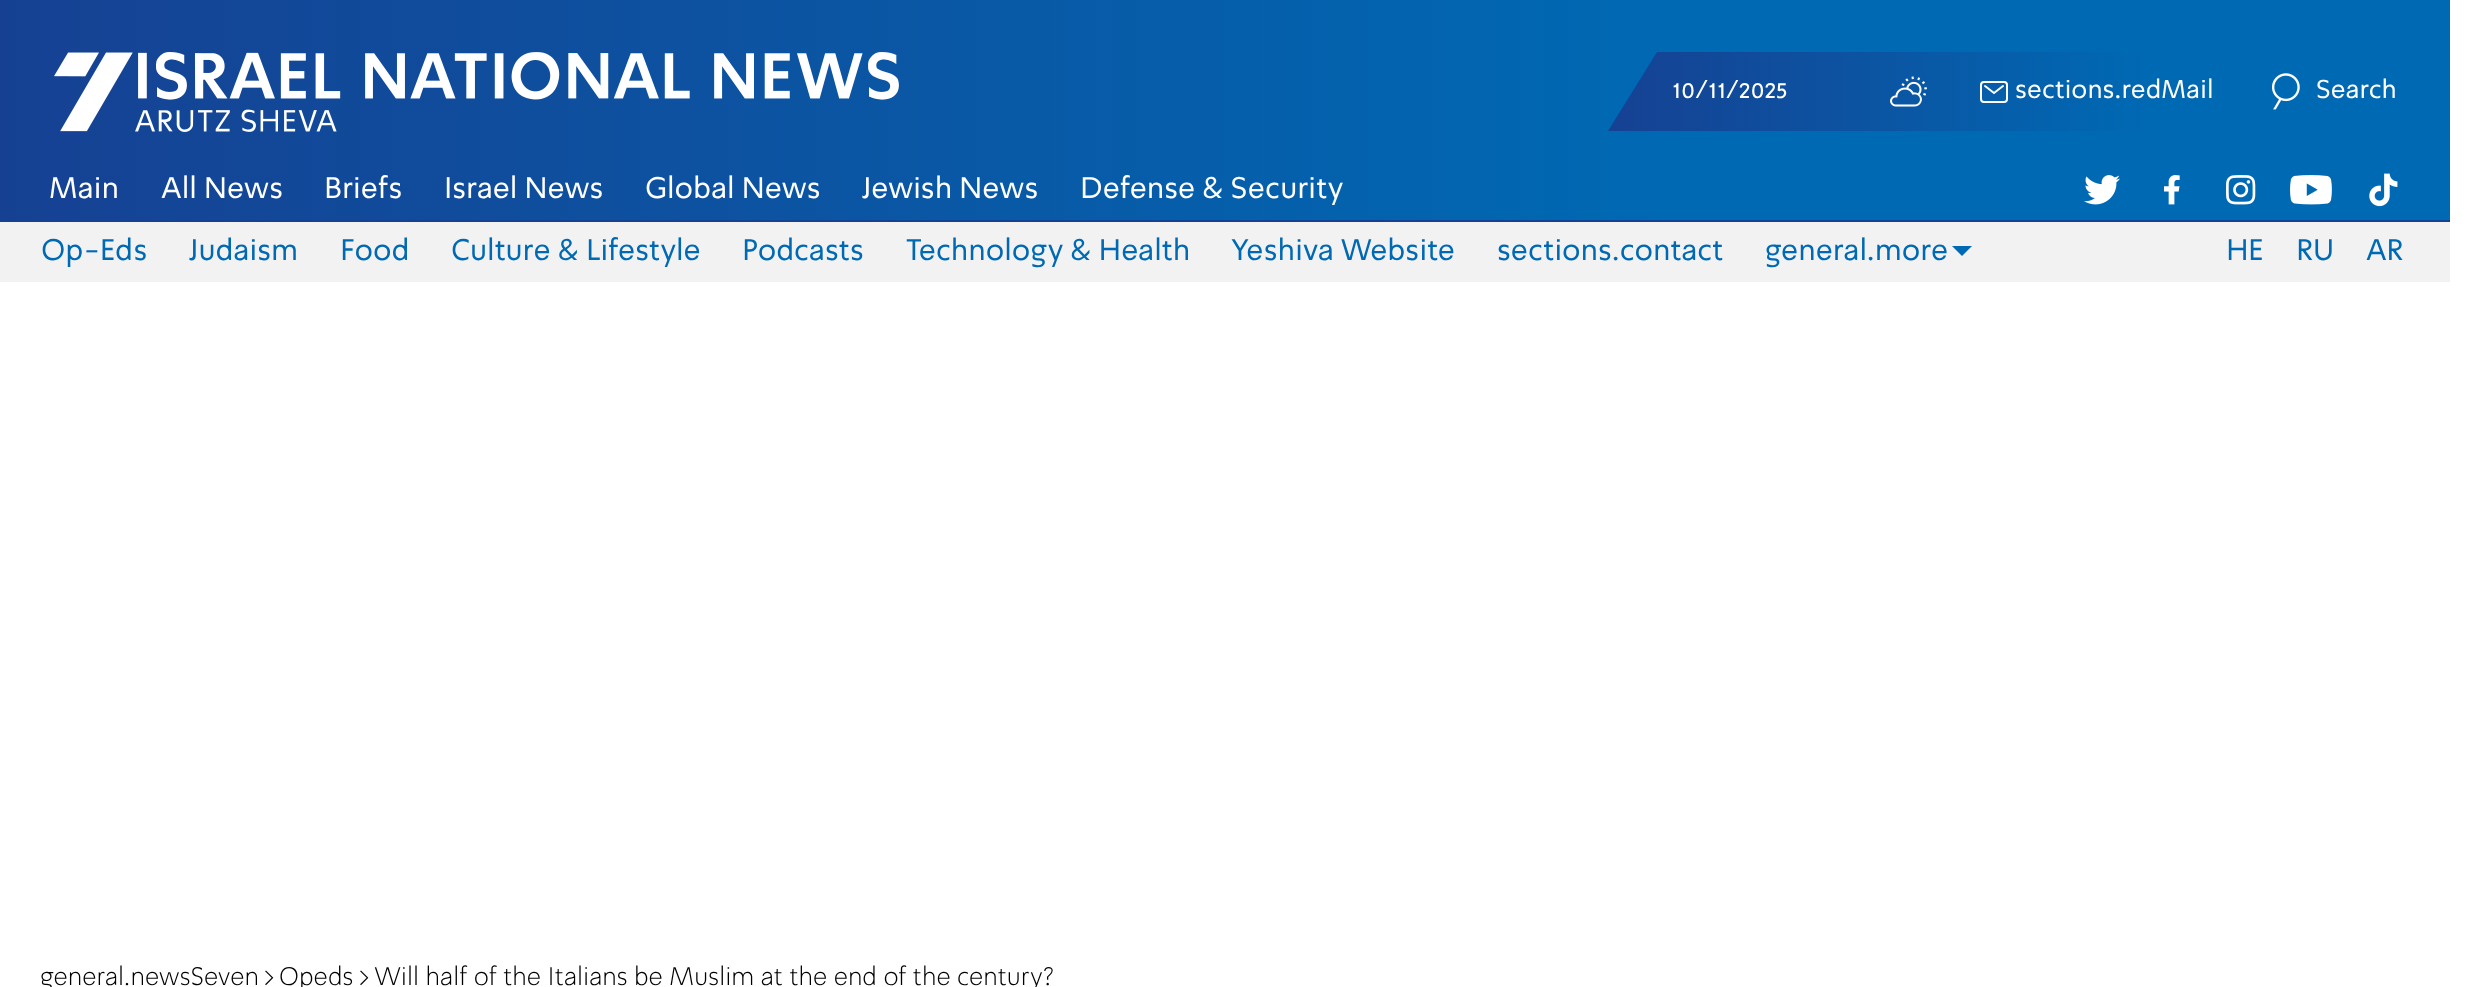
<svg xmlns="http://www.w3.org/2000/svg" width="2480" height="987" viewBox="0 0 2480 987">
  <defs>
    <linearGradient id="g1" gradientUnits="userSpaceOnUse" x1="2450" y1="110" x2="0" y2="110"><stop offset="0.32" stop-color="#0069b3"/><stop offset="1" stop-color="#164193"/></linearGradient>
    <linearGradient id="g2" gradientUnits="userSpaceOnUse" x1="2398" y1="92" x2="1608" y2="92"><stop offset="0.32" stop-color="#0069b3"/><stop offset="1" stop-color="#164193"/></linearGradient>
  </defs>
  <rect width="100%" height="100%" fill="#ffffff"/>
  <rect x="0" y="222" width="2450" height="60" fill="#f2f2f2"/>
  <rect x="0" y="0" width="2450" height="220" fill="url(#g1)"/>
  <rect x="0" y="220" width="2450" height="2" fill="#164193"/>
  <image x="54" y="52" width="845" height="80" href="img1.png"/>
  <path d="M1608 131L1657 52H2397V131Z" fill="url(#g2)"/>
  <text x="1672" y="98" font-family="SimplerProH" font-size="26" fill="#ffffff">10/11/2025</text>
  <image x="1890" y="76" width="37" height="31" href="img2.png"/>
  <rect x="1981" y="82" width="26" height="20" rx="3" fill="none" stroke="#ffffff" stroke-width="2"/>
  <path d="M1985 86L1994 93L2003 86" fill="none" stroke="#ffffff" stroke-width="2" stroke-linecap="round" stroke-linejoin="round"/>
  <text x="2015" y="98" font-family="SimplerProH" font-size="26" fill="#ffffff">sections.redMail</text>
  <image x="2272" y="73" width="28" height="37" href="img3.png"/>
  <text x="2316" y="98" font-family="SimplerProH" font-size="26" fill="#ffffff">Search</text>
  <text x="49" y="198" font-family="SimplerProH" font-size="30" fill="#ffffff">Main</text>
  <text x="161" y="198" font-family="SimplerProH" font-size="30" fill="#ffffff">All News</text>
  <text x="324" y="198" font-family="SimplerProH" font-size="30" fill="#ffffff">Briefs</text>
  <text x="444" y="198" font-family="SimplerProH" font-size="30" fill="#ffffff">Israel News</text>
  <text x="645" y="198" font-family="SimplerProH" font-size="30" fill="#ffffff">Global News</text>
  <text x="862" y="198" font-family="SimplerProH" font-size="30" fill="#ffffff">Jewish News</text>
  <text x="1080" y="198" font-family="SimplerProH" font-size="30" fill="#ffffff">Defense &amp; Security</text>
  <image x="2084" y="175" width="36" height="30" href="img4.png"/>
  <image x="2164" y="175" width="16" height="30" href="img5.png"/>
  <image x="2226" y="175" width="30" height="30" href="img6.png"/>
  <image x="2290" y="175" width="42" height="30" href="img7.png"/>
  <image x="2369" y="173" width="29" height="34" href="img8.png"/>
  <text x="41" y="260" font-family="SimplerProH" font-size="30" fill="#0069b3">Op-Eds</text>
  <text x="189" y="260" font-family="SimplerProH" font-size="30" fill="#0069b3">Judaism</text>
  <text x="340" y="260" font-family="SimplerProH" font-size="30" fill="#0069b3">Food</text>
  <text x="451" y="260" font-family="SimplerProH" font-size="30" fill="#0069b3">Culture &amp; Lifestyle</text>
  <text x="742" y="260" font-family="SimplerProH" font-size="30" fill="#0069b3">Podcasts</text>
  <text x="906" y="260" font-family="SimplerProH" font-size="30" fill="#0069b3">Technology &amp; Health</text>
  <text x="1231" y="260" font-family="SimplerProH" font-size="30" fill="#0069b3">Yeshiva Website</text>
  <text x="1497" y="260" font-family="SimplerProH" font-size="30" fill="#0069b3">sections.contact</text>
  <text x="1765" y="260" font-family="SimplerProH" font-size="30" fill="#0069b3">general.more</text>
  <path d="M1952 246H1972L1962 256Z" fill="#0069b3"/>
  <text x="2226" y="260" font-family="SimplerProH" font-size="30" fill="#0069b3">HE</text>
  <text x="2296" y="260" font-family="SimplerProH" font-size="30" fill="#0069b3">RU</text>
  <text x="2366" y="260" font-family="SimplerProH" font-size="30" fill="#0069b3">AR</text>
  <text x="40" y="985" font-family="SimplerProH" font-size="26" font-weight="300" fill="#000000">general.newsSeven</text>
  <text x="263" y="985" font-family="SimplerProH" font-size="26" font-weight="300" fill="#000000">&gt;</text>
  <text x="279" y="985" font-family="SimplerProH" font-size="26" font-weight="300" fill="#000000">Opeds</text>
  <text x="358" y="985" font-family="SimplerProH" font-size="26" font-weight="300" fill="#000000">&gt;</text>
  <text x="374" y="985" font-family="SimplerProH" font-size="26" font-weight="300" fill="#000000">Will half of the Italians be Muslim at the end of the century?</text>
</svg>
